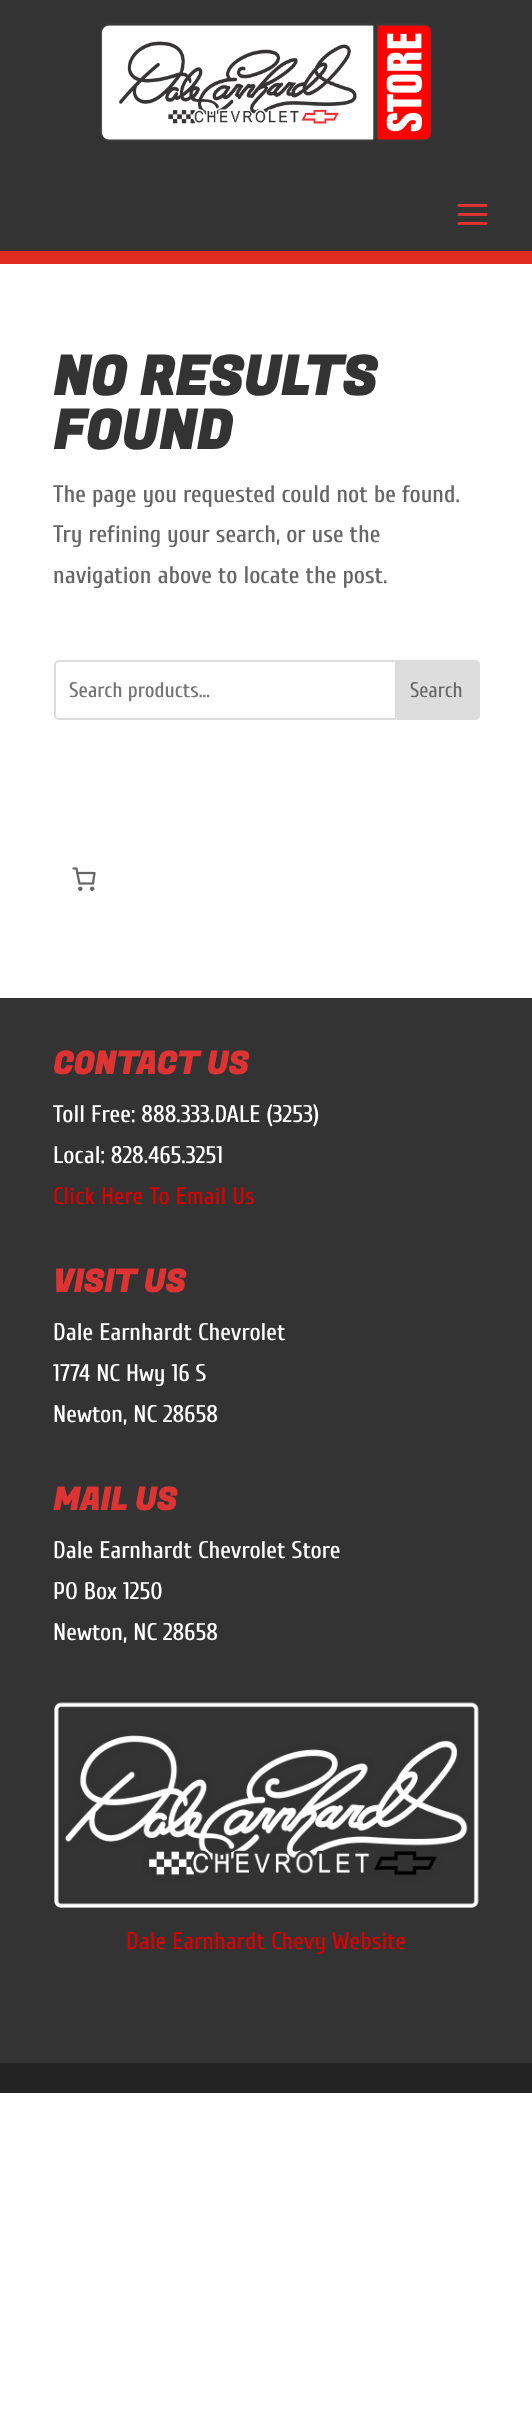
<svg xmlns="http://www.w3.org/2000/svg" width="532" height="2409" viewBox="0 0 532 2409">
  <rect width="100%" height="100%" fill="#ffffff"/>
  <rect x="0" y="0" width="532" height="251" fill="#333333"/>
  <image x="100" y="23" width="332" height="119" href="img1.png"/>
  <image x="457" y="203" width="31" height="22" href="img2.png"/>
  <rect x="0" y="251" width="532" height="13" fill="#e02b20"/>
  <text x="53" y="395" font-family="Fugaz One" font-size="54" font-weight="bold" fill="#333333">NO RESULTS</text>
  <text x="53" y="449" font-family="Fugaz One" font-size="54" font-weight="bold" fill="#333333">FOUND</text>
  <text x="53" y="502" font-family="Cuprum" font-size="24" font-weight="500" fill="#666666">The page you requested could not be found.</text>
  <text x="53" y="542" font-family="Cuprum" font-size="24" font-weight="500" fill="#666666">Try refining your search, or use the</text>
  <text x="53" y="583" font-family="Cuprum" font-size="24" font-weight="500" fill="#666666">navigation above to locate the post.</text>
  <rect x="55" y="661" width="424" height="58" rx="4" fill="none" stroke="#dddddd" stroke-width="2"/>
  <text x="69" y="697" font-family="Cuprum" font-size="21" font-weight="500" fill="#757575">Search products…</text>
  <path d="M396 661H475C477 661 479 663 479 665V715C479 717 477 719 475 719H396Z" fill="#dddddd" stroke="#dddddd" stroke-width="2"/>
  <text x="410" y="697" font-family="Cuprum" font-size="21" fill="#666666">Search</text>
  <image x="72" y="867" width="24" height="24" href="img3.png"/>
  <rect x="0" y="998" width="532" height="1065" fill="#333333"/>
  <text x="53" y="1074" font-family="Fugaz One" font-size="31.5" font-weight="bold" fill="#dd3333">CONTACT US</text>
  <text x="53" y="1122" font-family="Cuprum" font-size="24" font-weight="500" fill="#ffffff">Toll Free: 888.333.DALE (3253)</text>
  <text x="53" y="1163" font-family="Cuprum" font-size="24" font-weight="500" fill="#ffffff">Local: 828.465.3251</text>
  <text x="53" y="1204" font-family="Cuprum" font-size="24" font-weight="500" fill="#dd0000">Click Here To Email Us</text>
  <text x="53" y="1292" font-family="Fugaz One" font-size="31.5" font-weight="bold" fill="#dd3333">VISIT US</text>
  <text x="53" y="1340" font-family="Cuprum" font-size="24" font-weight="500" fill="#ffffff">Dale Earnhardt Chevrolet</text>
  <text x="53" y="1381" font-family="Cuprum" font-size="24" font-weight="500" fill="#ffffff">1774 NC Hwy 16 S</text>
  <text x="53" y="1422" font-family="Cuprum" font-size="24" font-weight="500" fill="#ffffff">Newton, NC 28658</text>
  <text x="53" y="1510" font-family="Fugaz One" font-size="31.5" font-weight="bold" fill="#dd3333">MAIL US</text>
  <text x="53" y="1558" font-family="Cuprum" font-size="24" font-weight="500" fill="#ffffff">Dale Earnhardt Chevrolet Store</text>
  <text x="53" y="1599" font-family="Cuprum" font-size="24" font-weight="500" fill="#ffffff">PO Box 1250</text>
  <text x="53" y="1640" font-family="Cuprum" font-size="24" font-weight="500" fill="#ffffff">Newton, NC 28658</text>
  <image x="54" y="1702" width="425" height="206" href="img4.png"/>
  <text x="126" y="1949" font-family="Cuprum" font-size="24" font-weight="500" fill="#dd0000">Dale Earnhardt Chevy Website</text>
  <rect x="0" y="2063" width="532" height="30" fill="#232323"/>
</svg>
